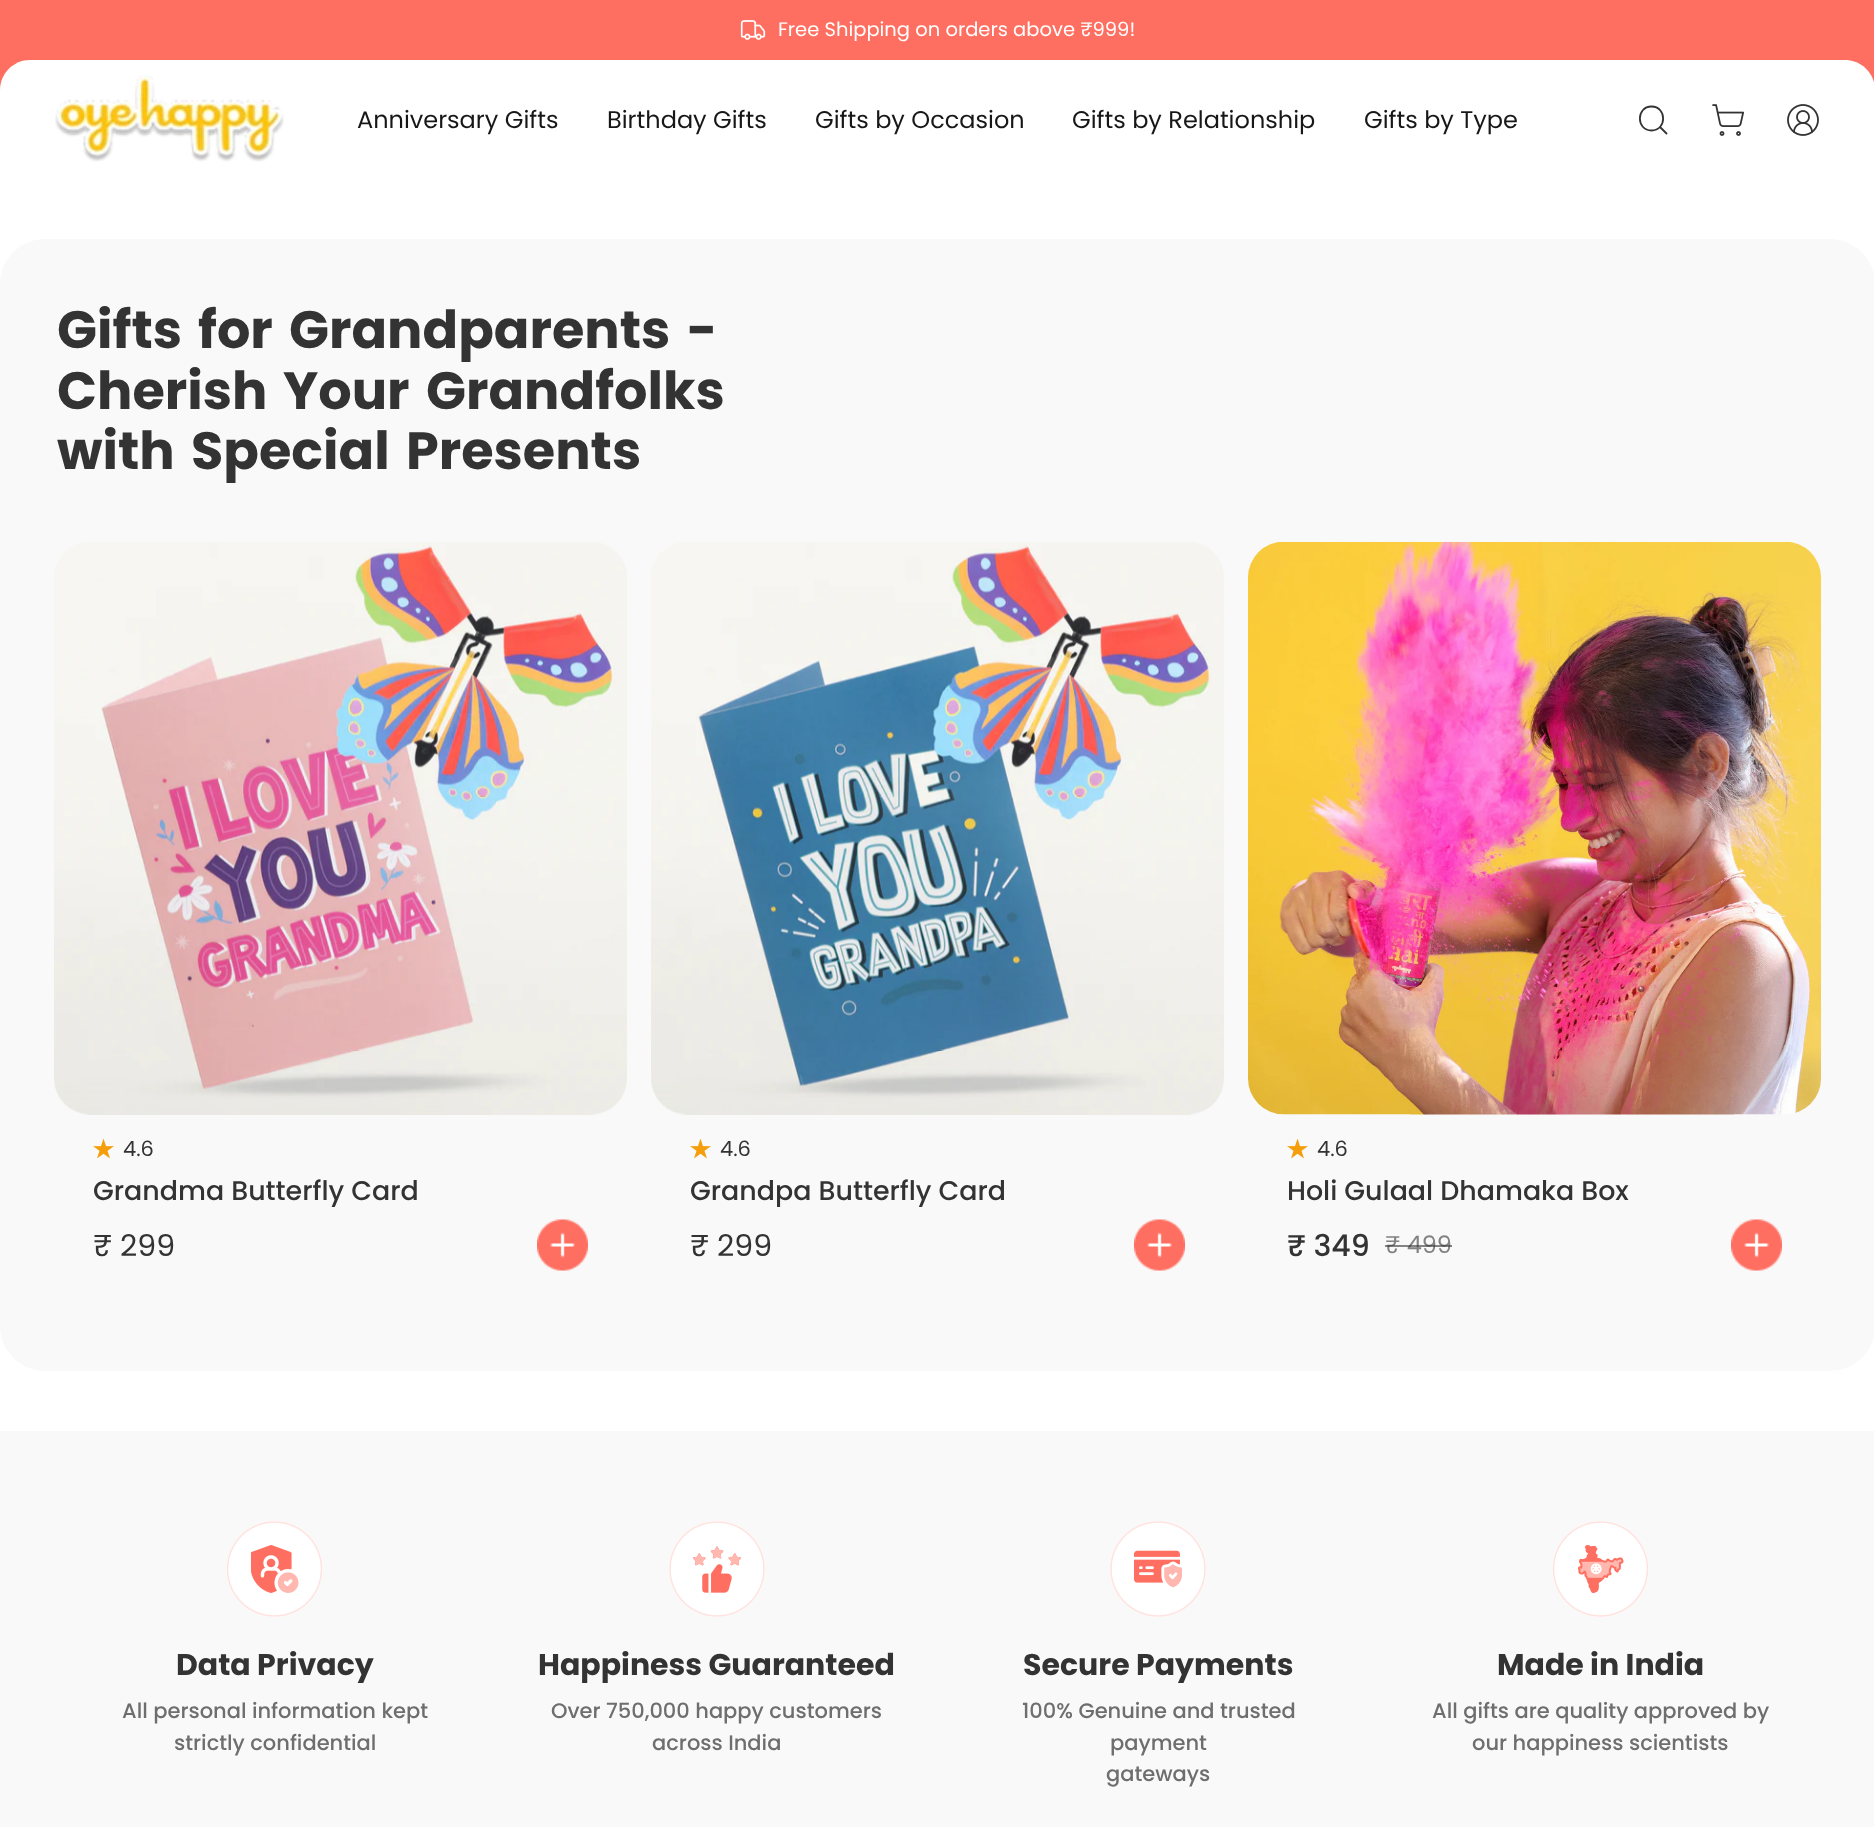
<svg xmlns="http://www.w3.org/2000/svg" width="1874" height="1827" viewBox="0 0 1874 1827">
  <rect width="100%" height="100%" fill="#ffffff"/>
  <rect x="0" y="0" width="1874" height="30" fill="#ff6f61"/>
  <path d="M30 0H1845C1861.5 0 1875 13.5 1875 30V90H0V30C0 13.5 13.5 0 30 0Z" fill="#ff6f61"/>
  <image x="740" y="20" width="26" height="20" href="img1.png"/>
  <text x="778" y="36" font-family="Poppins" font-size="19.5" fill="#ffffff">Free Shipping on orders above ₹999!</text>
  <path d="M30 60H1845C1861.5 60 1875 73.5 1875 90V179H0V90C0 73.5 13.5 60 30 60Z" fill="#ffffff"/>
  <image x="55" y="75" width="229" height="87" href="img2.png"/>
  <text x="357" y="128" font-family="Poppins" font-size="24" fill="#171717">Anniversary Gifts</text>
  <text x="607" y="128" font-family="Poppins" font-size="24" fill="#171717">Birthday Gifts</text>
  <text x="815" y="128" font-family="Poppins" font-size="24" fill="#171717">Gifts by Occasion</text>
  <text x="1072" y="128" font-family="Poppins" font-size="24" fill="#171717">Gifts by Relationship</text>
  <text x="1364" y="128" font-family="Poppins" font-size="24" fill="#171717">Gifts by Type</text>
  <path d="M1651.5 130.5C1667 130.5 1667 106.5 1651.5 106.5C1636 106.5 1636 130.5 1651.5 130.5ZM1666.5 133.5L1660 127" fill="none" stroke="#333333" stroke-width="1.8" stroke-linecap="round" stroke-linejoin="round"/>
  <image x="1712" y="104" width="32" height="32" href="img3.png"/>
  <image x="1787" y="104" width="32" height="32" href="img4.png"/>
  <rect x="0" y="239" width="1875" height="1132" rx="45" fill="#f9f9f9"/>
  <text x="57" y="348" font-family="Poppins" font-size="52.5" font-weight="bold" fill="#333333">Gifts</text>
  <text x="198" y="348" font-family="Poppins" font-size="52.5" font-weight="bold" fill="#333333">for</text>
  <text x="289" y="348" font-family="Poppins" font-size="52.5" font-weight="bold" fill="#333333">Grandparents</text>
  <text x="687" y="348" font-family="Poppins" font-size="52.5" font-weight="bold" fill="#333333">-</text>
  <text x="57" y="409" font-family="Poppins" font-size="52.5" font-weight="bold" fill="#333333">Cherish</text>
  <text x="283" y="409" font-family="Poppins" font-size="52.5" font-weight="bold" fill="#333333">Your</text>
  <text x="426" y="409" font-family="Poppins" font-size="52.5" font-weight="bold" fill="#333333">Grandfolks</text>
  <text x="57" y="469" font-family="Poppins" font-size="52.5" font-weight="bold" fill="#333333">with</text>
  <text x="191" y="469" font-family="Poppins" font-size="52.5" font-weight="bold" fill="#333333">Special</text>
  <text x="406" y="469" font-family="Poppins" font-size="52.5" font-weight="bold" fill="#333333">Presents</text>
  <image x="54" y="542" width="573" height="573" href="img5.png"/>
  <image x="93" y="1139" width="21" height="20" href="img6.png"/>
  <text x="123" y="1156" font-family="Poppins" font-size="21" fill="#333333">4.6</text>
  <text x="93" y="1200" font-family="Poppins" font-size="26.9" font-weight="500" fill="#333333">Grandma Butterfly Card</text>
  <text x="93" y="1256" font-family="Poppins" font-size="30" fill="#333333">₹ 299</text>
  <image x="537" y="1219" width="51" height="52" href="img7.png"/>
  <image x="651" y="542" width="573" height="573" href="img8.png"/>
  <image x="690" y="1139" width="21" height="20" href="img6.png"/>
  <text x="720" y="1156" font-family="Poppins" font-size="21" fill="#333333">4.6</text>
  <text x="690" y="1200" font-family="Poppins" font-size="26.9" font-weight="500" fill="#333333">Grandpa Butterfly Card</text>
  <text x="690" y="1256" font-family="Poppins" font-size="30" fill="#333333">₹ 299</text>
  <image x="1134" y="1219" width="51" height="52" href="img9.png"/>
  <image x="1248" y="542" width="573" height="573" href="img10.png"/>
  <image x="1287" y="1139" width="21" height="20" href="img6.png"/>
  <text x="1317" y="1156" font-family="Poppins" font-size="21" fill="#333333">4.6</text>
  <text x="1287" y="1200" font-family="Poppins" font-size="26.9" font-weight="500" fill="#333333">Holi Gulaal Dhamaka Box</text>
  <text x="1287" y="1256" font-family="Poppins" font-size="30" font-weight="500" fill="#333333">₹ 349</text>
  <text x="1385" y="1253" font-family="Poppins" font-size="24" fill="#828282">₹ 499</text>
  <rect x="1385" y="1245" width="67" height="2" fill="#333333" fill-opacity="0.6"/>
  <image x="1731" y="1219" width="51" height="52" href="img7.png"/>
  <rect x="0" y="1431" width="1874" height="396" fill="#f9f9f9"/>
  <image x="227" y="1521" width="95" height="96" href="img11.png"/>
  <text x="176" y="1675" font-family="Poppins" font-size="30" font-weight="bold" fill="#333333">Data Privacy</text>
  <text x="122" y="1718" font-family="Poppins" font-size="21" font-weight="500" fill="#6e6e6e">All personal information kept</text>
  <text x="174" y="1750" font-family="Poppins" font-size="21" font-weight="500" fill="#6e6e6e">strictly confidential</text>
  <image x="669" y="1521" width="96" height="96" href="img12.png"/>
  <text x="538" y="1675" font-family="Poppins" font-size="30" font-weight="bold" fill="#333333">Happiness Guaranteed</text>
  <text x="551" y="1718" font-family="Poppins" font-size="21" font-weight="500" fill="#6e6e6e">Over 750,000 happy customers</text>
  <text x="652" y="1750" font-family="Poppins" font-size="21" font-weight="500" fill="#6e6e6e">across India</text>
  <image x="1110" y="1521" width="96" height="96" href="img13.png"/>
  <text x="1023" y="1675" font-family="Poppins" font-size="30" font-weight="bold" fill="#333333">Secure Payments</text>
  <text x="1022" y="1718" font-family="Poppins" font-size="21" font-weight="500" fill="#6e6e6e">100% Genuine and trusted</text>
  <text x="1110" y="1750" font-family="Poppins" font-size="21" font-weight="500" fill="#6e6e6e">payment</text>
  <text x="1106" y="1781" font-family="Poppins" font-size="21" font-weight="500" fill="#6e6e6e">gateways</text>
  <image x="1553" y="1521" width="95" height="96" href="img14.png"/>
  <text x="1497" y="1675" font-family="Poppins" font-size="30" font-weight="bold" fill="#333333">Made in India</text>
  <text x="1432" y="1718" font-family="Poppins" font-size="21" font-weight="500" fill="#6e6e6e">All gifts are quality approved by</text>
  <text x="1472" y="1750" font-family="Poppins" font-size="21" font-weight="500" fill="#6e6e6e">our happiness scientists</text>
</svg>
